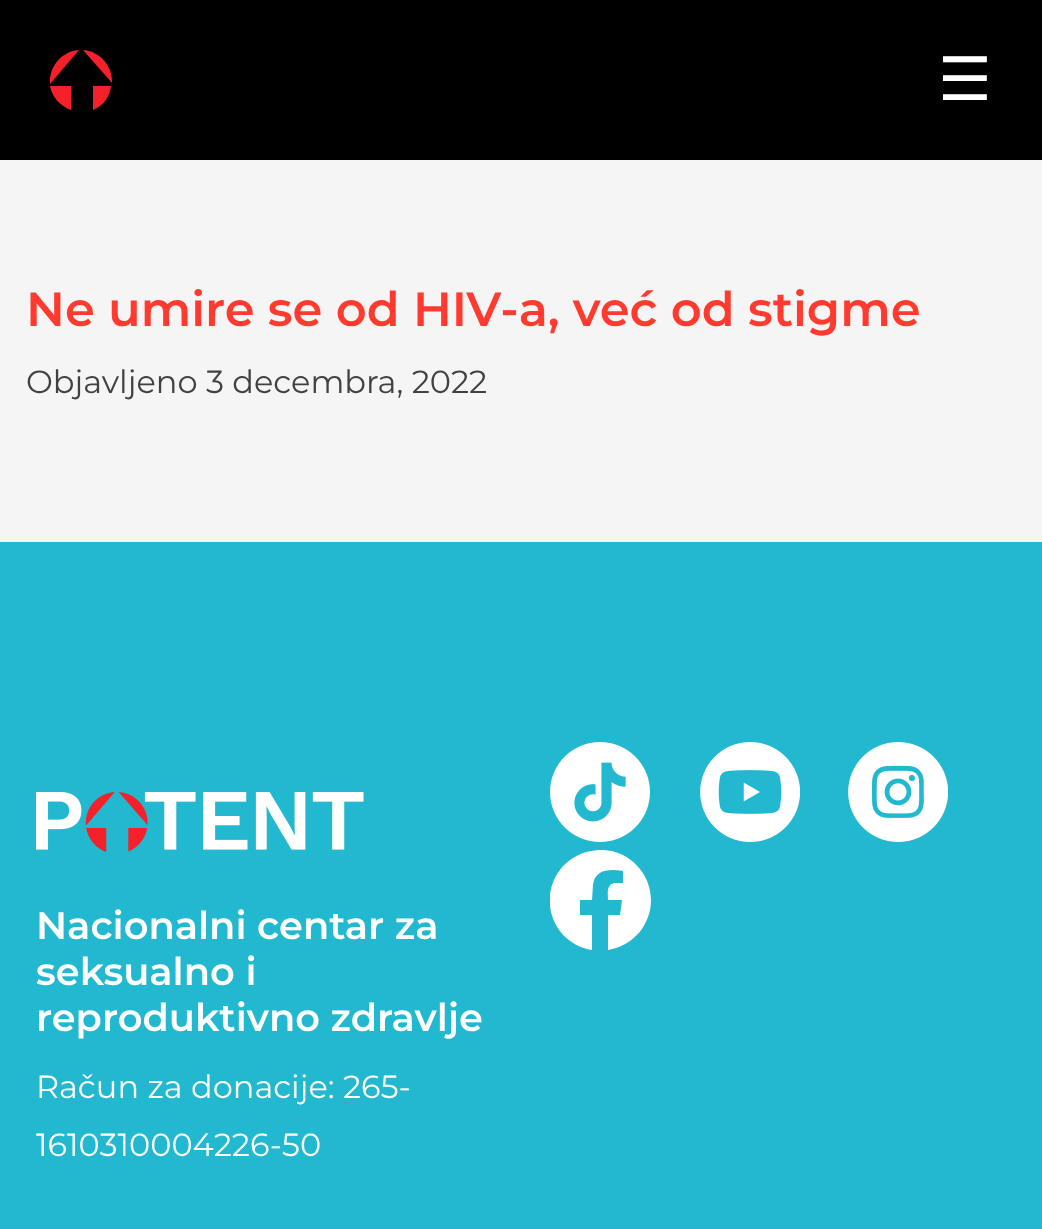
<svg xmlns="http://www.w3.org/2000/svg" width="1042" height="1229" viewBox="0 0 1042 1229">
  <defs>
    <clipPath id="clip1"><rect x="550" y="850" width="102" height="100"/></clipPath>
  </defs>
  <rect width="100%" height="100%" fill="#f5f5f5"/>
  <rect x="0" y="0" width="1042" height="160" fill="#000000"/>
  <path d="M112 81C112 65 99 51 83 50L112 83ZM111 86H93V110C103 106 110 97 111 86ZM50 86C52 97 60 106 71 110V86ZM50 81V84L79 50C63 51 50 65 50 81Z" fill="#f4202a"/>
  <text x="938" y="100" font-family="DejaVu Sans" font-size="60" fill="#ffffff">☰</text>
  <text x="26" y="326" font-family="Montserrat" font-size="48" font-weight="600" fill="#ff3b30">Ne umire se od HIV-a, već od stigme</text>
  <text x="26" y="393" font-family="Montserrat" font-size="32" fill="#414141">Objavljeno 3 decembra, 2022</text>
  <rect x="0" y="542" width="1042" height="687" fill="#22b8cf"/>
  <image x="550" y="742" width="100" height="100" href="img1.png"/>
  <image x="700" y="742" width="100" height="100" href="img2.png"/>
  <image x="848" y="742" width="100" height="100" href="img3.png"/>
  <g clip-path="url(#clip1)">
    <path d="M651 900C651 874 630 851 603 850C576 849 553 868 550 895C547 922 566 946 592 950V915H580V900H592L593 885C595 869 610 869 623 871V883H614C606 885 608 895 608 900H622L620 915H608V950C633 946 651 925 651 900Z" fill="#ffffff"/>
  </g>
  <image x="36" y="792" width="328" height="60" href="img4.png"/>
  <text x="36" y="939" font-family="Montserrat" font-size="38.4" font-weight="600" fill="#ffffff">Nacionalni centar za</text>
  <text x="36" y="985" font-family="Montserrat" font-size="38.4" font-weight="600" fill="#ffffff">seksualno i</text>
  <text x="36" y="1031" font-family="Montserrat" font-size="38.4" font-weight="600" fill="#ffffff">reproduktivno zdravlje</text>
  <text x="36" y="1098" font-family="Montserrat" font-size="32" fill="#ffffff">Račun za donacije: 265-</text>
  <text x="36" y="1156" font-family="Montserrat" font-size="32" fill="#ffffff">1610310004226-50</text>
</svg>
